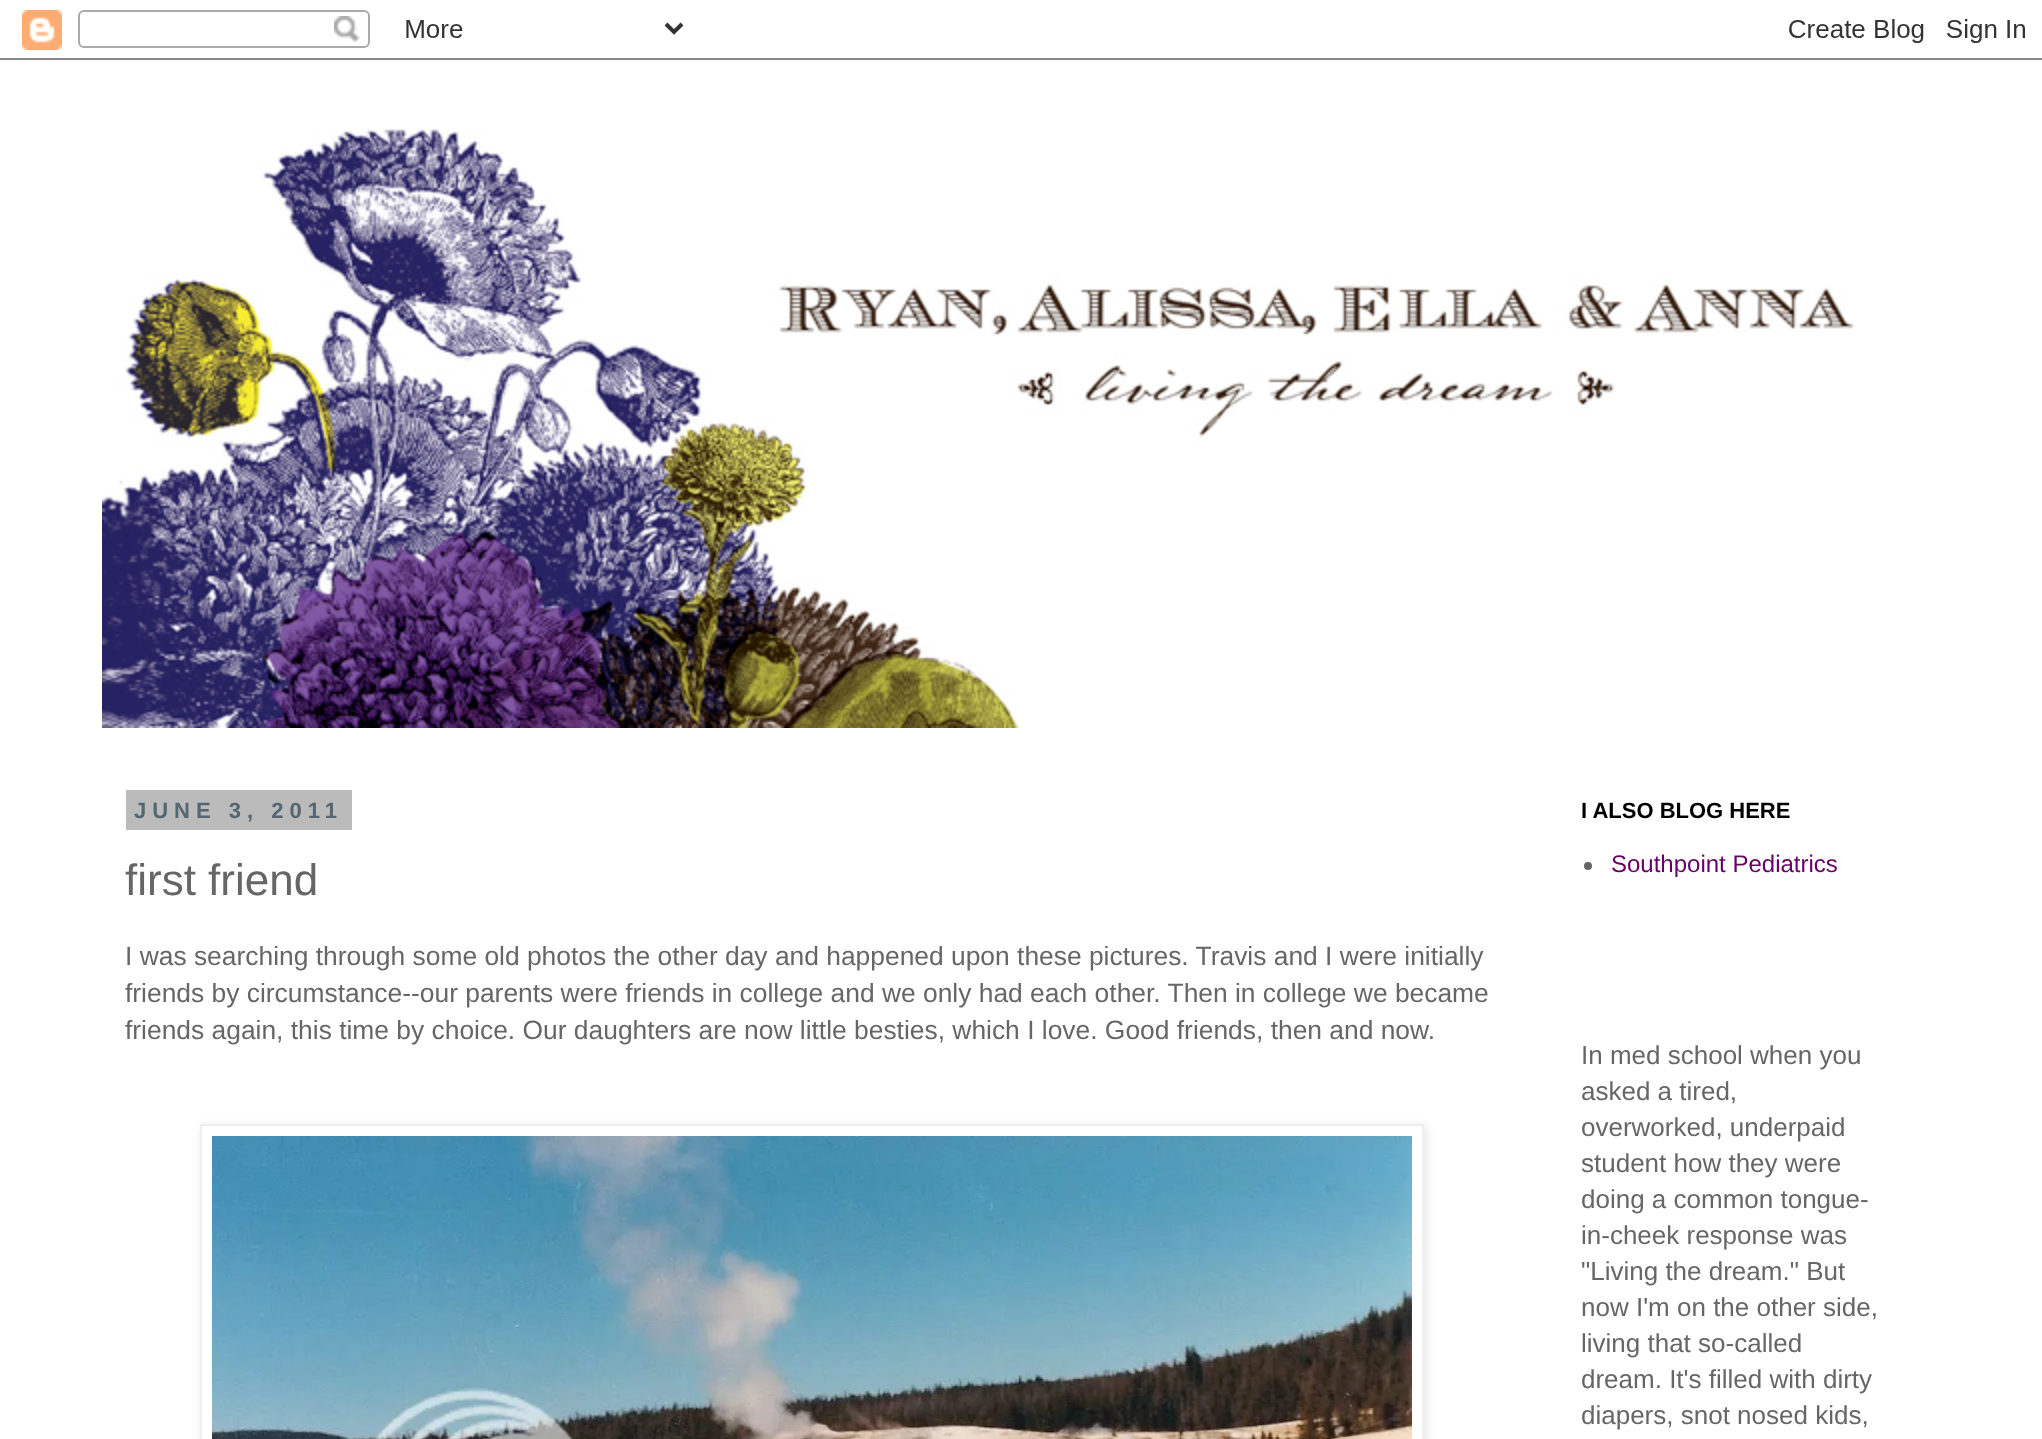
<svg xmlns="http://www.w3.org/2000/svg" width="2042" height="1439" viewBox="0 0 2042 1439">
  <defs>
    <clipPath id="clip1"><path d="M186 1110H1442V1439H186ZM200 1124H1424V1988H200Z" clip-rule="evenodd"/></clipPath>
    <filter id="blur1" x="-50%" y="-200%" width="200%" height="500%"><feGaussianBlur stdDeviation="5"/></filter>
  </defs>
  <rect width="100%" height="100%" fill="#ffffff"/>
  <image x="0" y="10" width="2042" height="50" href="img1.png"/>
  <image x="102" y="129" width="1753" height="599" href="img2.png"/>
  <rect x="126" y="790" width="226" height="40" fill="#bbbbbb"/>
  <text x="134" y="818" font-family="Liberation Sans" font-size="22" font-weight="bold" letter-spacing="6" fill="#536672">JUNE 3, 2011</text>
  <text x="125" y="895" font-family="Liberation Sans" font-size="44" fill="#666666">first friend</text>
  <text x="125" y="965" font-family="Liberation Sans" font-size="26.4" fill="#666666">I was searching through some old photos the other day and happened upon these pictures. Travis and I were initially</text>
  <text x="125" y="1002" font-family="Liberation Sans" font-size="26.4" fill="#666666">friends by circumstance--our parents were friends in college and we only had each other. Then in college we became</text>
  <text x="125" y="1039" font-family="Liberation Sans" font-size="26.4" fill="#666666">friends again, this time by choice. Our daughters are now little besties, which I love. Good friends, then and now.</text>
  <g clip-path="url(#clip1)">
    <rect x="202" y="1126" width="1224" height="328" fill="#000000" fill-opacity="0.1" filter="url(#blur1)"/>
  </g>
  <rect x="201" y="1125" width="1222" height="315" fill="none" stroke="#eeeeee" stroke-width="2"/>
  <image x="212" y="1136" width="1200" height="303" href="img3.png"/>
  <text x="1581" y="818" font-family="Liberation Sans" font-size="22" font-weight="bold" fill="#000000">I ALSO BLOG HERE</text>
  <circle cx="1588" cy="866" r="4" fill="#666666"/>
  <text x="1611" y="872" font-family="Liberation Sans" font-size="24" fill="#660066">Southpoint Pediatrics</text>
  <text x="1581" y="1064" font-family="Liberation Sans" font-size="26" fill="#666666">In med school when you</text>
  <text x="1581" y="1100" font-family="Liberation Sans" font-size="26" fill="#666666">asked a tired,</text>
  <text x="1581" y="1136" font-family="Liberation Sans" font-size="26" fill="#666666">overworked, underpaid</text>
  <text x="1581" y="1172" font-family="Liberation Sans" font-size="26" fill="#666666">student how they were</text>
  <text x="1581" y="1208" font-family="Liberation Sans" font-size="26" fill="#666666">doing a common tongue-</text>
  <text x="1581" y="1244" font-family="Liberation Sans" font-size="26" fill="#666666">in-cheek response was</text>
  <text x="1581" y="1280" font-family="Liberation Sans" font-size="26" fill="#666666">"Living the dream." But</text>
  <text x="1581" y="1316" font-family="Liberation Sans" font-size="26" fill="#666666">now I'm on the other side,</text>
  <text x="1581" y="1352" font-family="Liberation Sans" font-size="26" fill="#666666">living that so-called</text>
  <text x="1581" y="1388" font-family="Liberation Sans" font-size="26" fill="#666666">dream. It's filled with dirty</text>
  <text x="1581" y="1424" font-family="Liberation Sans" font-size="26" fill="#666666">diapers, snot nosed kids,</text>
</svg>
